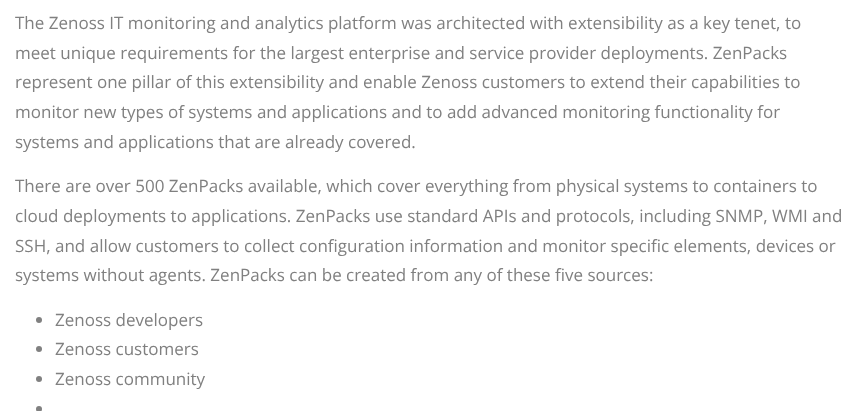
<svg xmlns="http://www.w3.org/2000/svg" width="861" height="411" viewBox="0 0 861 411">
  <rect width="100%" height="100%" fill="#ffffff"/>
  <text x="15" y="29" font-family="Open Sans" font-size="17" fill="#808080">The Zenoss IT monitoring and analytics platform was architected with extensibility as a key tenet, to</text>
  <text x="15" y="59" font-family="Open Sans" font-size="17" fill="#808080">meet unique requirements for the largest enterprise and service provider deployments. ZenPacks</text>
  <text x="15" y="88" font-family="Open Sans" font-size="17" fill="#808080">represent one pillar of this extensibility and enable Zenoss customers to extend their capabilities to</text>
  <text x="15" y="118" font-family="Open Sans" font-size="17" fill="#808080">monitor new types of systems and applications and to add advanced monitoring functionality for</text>
  <text x="15" y="148" font-family="Open Sans" font-size="17" fill="#808080">systems and applications that are already covered.</text>
  <text x="15" y="192" font-family="Open Sans" font-size="17" fill="#808080">There are over 500 ZenPacks available, which cover everything from physical systems to containers to</text>
  <text x="15" y="222" font-family="Open Sans" font-size="17" fill="#808080">cloud deployments to applications. ZenPacks use standard APIs and protocols, including SNMP, WMI and</text>
  <text x="15" y="252" font-family="Open Sans" font-size="17" fill="#808080">SSH, and allow customers to collect configuration information and monitor specific elements, devices or</text>
  <text x="15" y="281" font-family="Open Sans" font-size="17" fill="#808080">systems without agents. ZenPacks can be created from any of these five sources:</text>
  <circle cx="39" cy="320" r="3" fill="#808080"/>
  <text x="55" y="326" font-family="Open Sans" font-size="17" fill="#808080">Zenoss developers</text>
  <circle cx="39" cy="349" r="3" fill="#808080"/>
  <text x="55" y="355" font-family="Open Sans" font-size="17" fill="#808080">Zenoss customers</text>
  <circle cx="39" cy="379" r="3" fill="#808080"/>
  <text x="55" y="385" font-family="Open Sans" font-size="17" fill="#808080">Zenoss community</text>
  <circle cx="39" cy="409" r="3" fill="#808080"/>
</svg>
